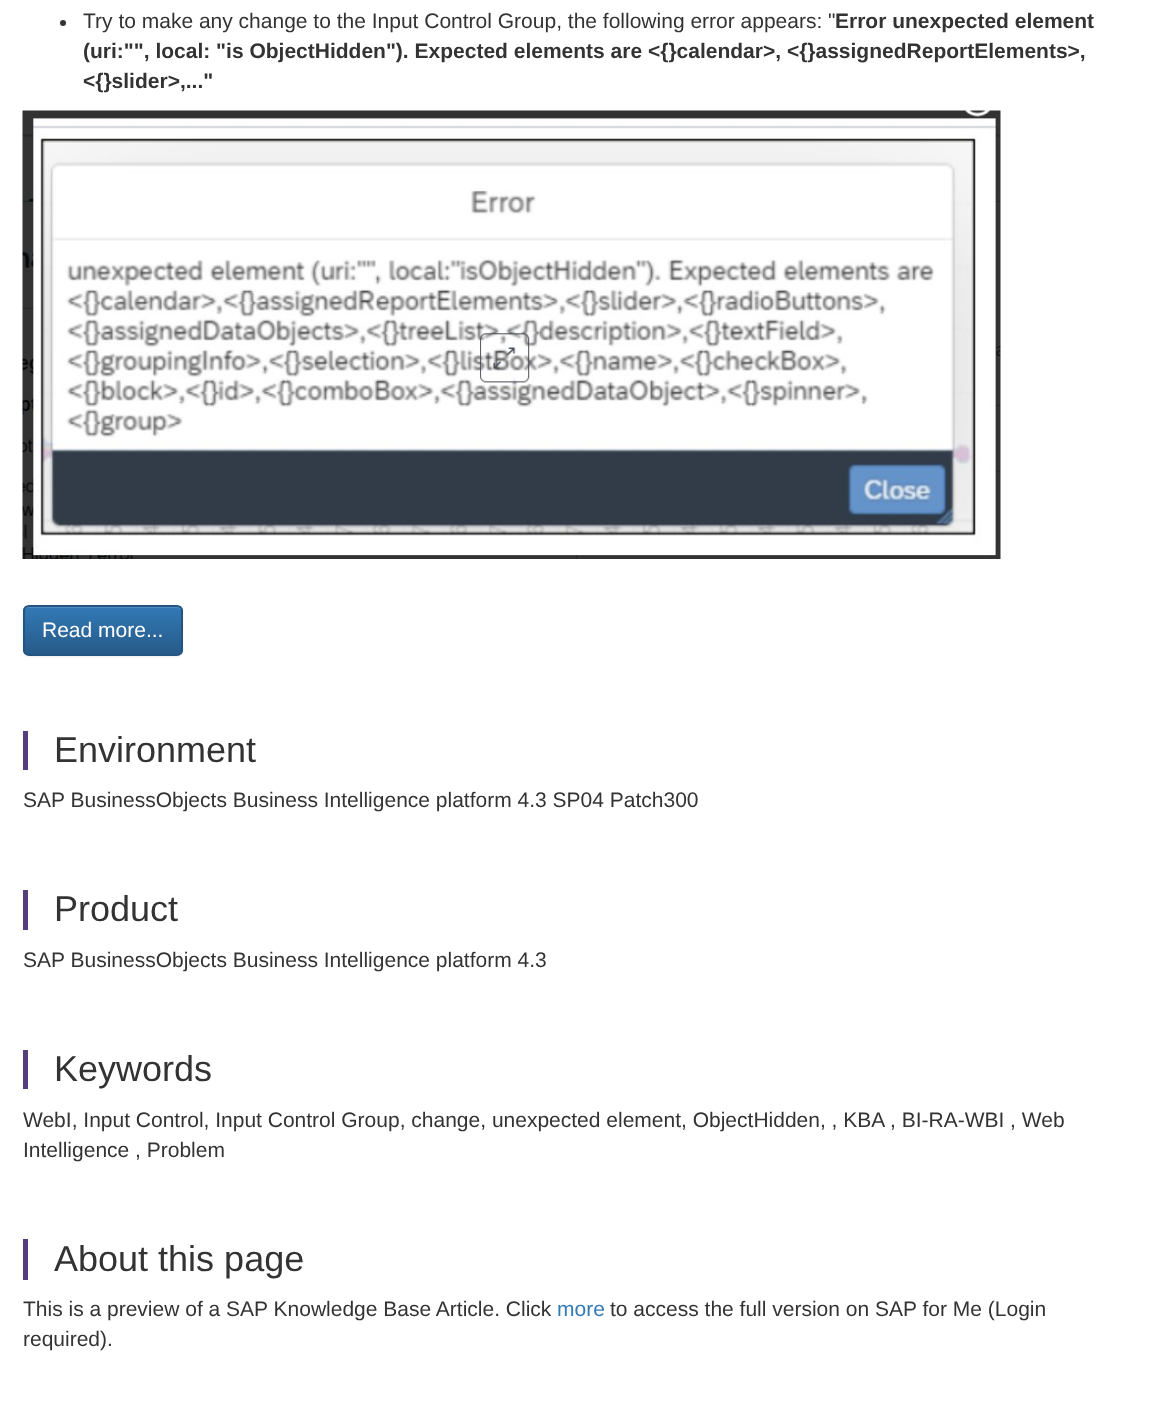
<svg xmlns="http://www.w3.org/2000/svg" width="1157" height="1412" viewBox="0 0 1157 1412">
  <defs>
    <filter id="blur1" x="-50%" y="-200%" width="200%" height="500%"><feGaussianBlur stdDeviation="1"/></filter>
    <clipPath id="clip1"><rect x="23" y="605" width="160" height="51" rx="6"/></clipPath>
    <linearGradient id="g1" gradientUnits="userSpaceOnUse" x1="103" y1="606" x2="103" y2="654"><stop offset="0" stop-color="#337ab7"/><stop offset="1" stop-color="#265a88"/></linearGradient>
  </defs>
  <rect width="100%" height="100%" fill="#ffffff"/>
  <circle cx="63" cy="23" r="3" fill="#333333"/>
  <text x="83" y="28" font-family="Liberation Sans" font-size="21" fill="#333333">Try to make any change to the Input Control Group, the following error appears: "</text>
  <text x="835" y="28" font-family="Liberation Sans" font-size="21" font-weight="bold" fill="#333333">Error unexpected element</text>
  <text x="83" y="58" font-family="Liberation Sans" font-size="21" font-weight="bold" fill="#333333">(uri:"", local: "is ObjectHidden"). Expected elements are &lt;{}calendar&gt;, &lt;{}assignedReportElements&gt;,</text>
  <text x="83" y="88" font-family="Liberation Sans" font-size="21" font-weight="bold" fill="#333333">&lt;{}slider&gt;,..."</text>
  <image x="22" y="110" width="979" height="449" href="img1.png"/>
  <rect x="23" y="606" width="160" height="51" rx="6" fill="#000000" fill-opacity="0.07" filter="url(#blur1)"/>
  <g clip-path="url(#clip1)">
    <rect x="23" y="606" width="160" height="48" fill="url(#g1)"/>
  </g>
  <path d="M28 608H177C179 608 182 610 182 612V611C182 608 180 606 177 606H29C26 606 24 608 24 611V612C24 610 26 608 28 608Z" fill="#ffffff" fill-opacity="0.15"/>
  <rect x="24" y="606" width="158" height="49" rx="5" fill="none" stroke="#245580" stroke-width="2"/>
  <text x="42" y="637" font-family="Liberation Sans" font-size="21" fill="#ffffff">Read more...</text>
  <rect x="23" y="731" width="5" height="39" fill="#563d7c"/>
  <text x="54" y="762" font-family="Liberation Sans" font-size="36" fill="#333333">Environment</text>
  <text x="23" y="807" font-family="Liberation Sans" font-size="21" fill="#333333">SAP BusinessObjects Business Intelligence platform 4.3 SP04 Patch300</text>
  <rect x="23" y="890" width="5" height="40" fill="#563d7c"/>
  <text x="54" y="921" font-family="Liberation Sans" font-size="36" fill="#333333">Product</text>
  <text x="23" y="967" font-family="Liberation Sans" font-size="21" fill="#333333">SAP BusinessObjects Business Intelligence platform 4.3</text>
  <rect x="23" y="1050" width="5" height="39" fill="#563d7c"/>
  <text x="54" y="1081" font-family="Liberation Sans" font-size="36" fill="#333333">Keywords</text>
  <text x="23" y="1127" font-family="Liberation Sans" font-size="21" fill="#333333">WebI, Input Control, Input Control Group, change, unexpected element, ObjectHidden, , KBA , BI-RA-WBI , Web</text>
  <text x="23" y="1157" font-family="Liberation Sans" font-size="21" fill="#333333">Intelligence , Problem</text>
  <rect x="23" y="1239" width="5" height="41" fill="#563d7c"/>
  <text x="54" y="1271" font-family="Liberation Sans" font-size="36" fill="#333333">About this page</text>
  <text x="23" y="1316" font-family="Liberation Sans" font-size="21" fill="#333333">This is a preview of a SAP Knowledge Base Article. Click</text>
  <text x="557" y="1316" font-family="Liberation Sans" font-size="21" fill="#337ab7">more</text>
  <text x="610" y="1316" font-family="Liberation Sans" font-size="21" fill="#333333">to access the full version on SAP for Me (Login</text>
  <text x="23" y="1346" font-family="Liberation Sans" font-size="21" fill="#333333">required).</text>
</svg>
